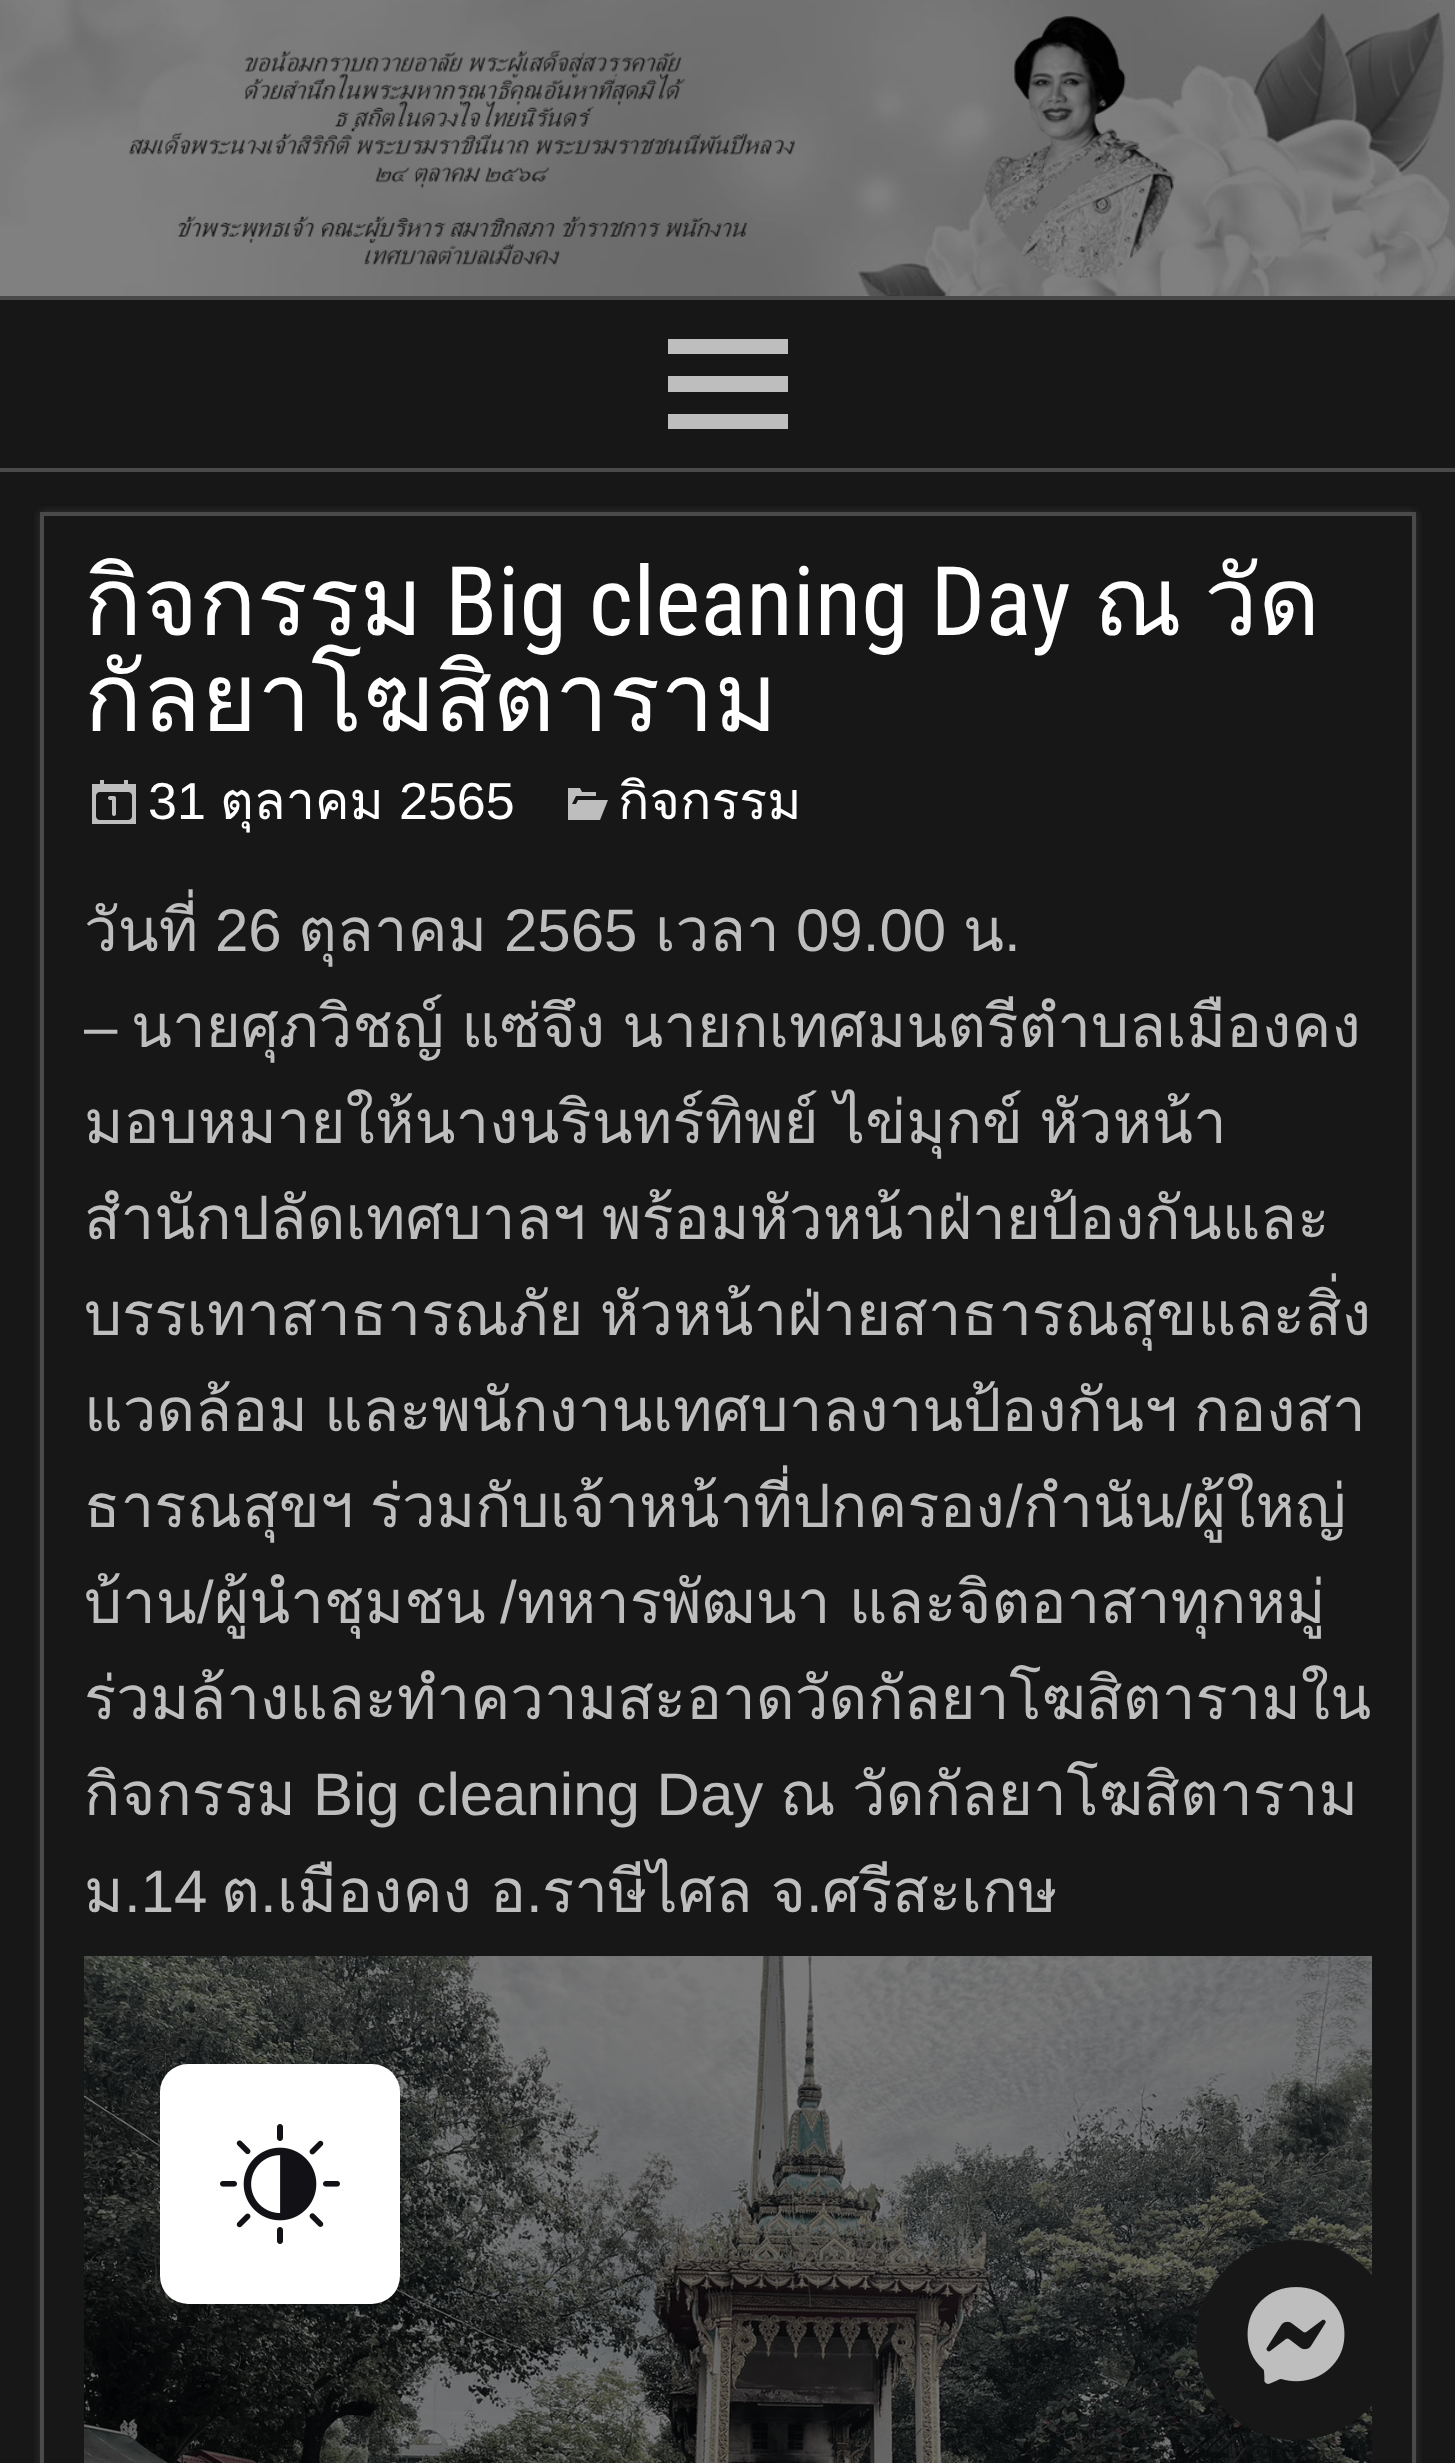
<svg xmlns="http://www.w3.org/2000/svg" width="1455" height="2463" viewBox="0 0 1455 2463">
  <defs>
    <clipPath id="clip1"><path d="M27 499H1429V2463H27ZM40 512H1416V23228H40Z" clip-rule="evenodd"/></clipPath>
    <filter id="blur1" x="-50%" y="-200%" width="200%" height="500%"><feGaussianBlur stdDeviation="4"/></filter>
  </defs>
  <rect width="100%" height="100%" fill="#4a4a4a"/>
  <image x="0" y="0" width="1455" height="296" href="img1.png"/>
  <rect x="0" y="300" width="1455" height="168" fill="#171717"/>
  <path d="M668 429V414H788V429ZM668 339H788V354H668ZM668 392V376H788V392Z" fill="#bebebe"/>
  <rect x="0" y="472" width="1455" height="1991" fill="#171717"/>
  <g clip-path="url(#clip1)">
    <rect x="40" y="512" width="1376" height="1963" fill="#333333" filter="url(#blur1)"/>
  </g>
  <rect x="42" y="514" width="1372" height="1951" fill="none" stroke="#4a4a4a" stroke-width="4"/>
  <text x="84" y="635" font-family="Loma" font-size="96" fill="#ffffff">กิจกรรม</text>
  <text x="445" y="635" font-family="Roboto Condensed" font-size="96" fill="#ffffff">Big cleaning Day</text>
  <text x="1093" y="635" font-family="Loma" font-size="96" fill="#ffffff">ณ</text>
  <text x="1204" y="635" font-family="Loma" font-size="96" fill="#ffffff">วัด</text>
  <text x="84" y="731" font-family="Loma" font-size="96" fill="#ffffff">กัลยาโฆสิตาราม</text>
  <image x="92" y="780" width="44" height="44" href="img2.png"/>
  <text x="148" y="819" font-family="Liberation Sans" font-size="52" fill="#ffffff">31</text>
  <text x="220" y="819" font-family="Loma" font-size="52" fill="#ffffff">ตุลาคม</text>
  <text x="399" y="819" font-family="Liberation Sans" font-size="52" fill="#ffffff">2565</text>
  <path d="M578 800H608L600 820H568V788H580L582 792H596V796H576L572 804H576Z" fill="#bebebe"/>
  <text x="618" y="819" font-family="Loma" font-size="52" fill="#ffffff">กิจกรรม</text>
  <text x="84" y="951" font-family="Loma" font-size="60" fill="#bebebe">วันที่</text>
  <text x="215" y="951" font-family="Arimo" font-size="60" fill="#bebebe">26</text>
  <text x="298" y="951" font-family="Loma" font-size="60" fill="#bebebe">ตุลาคม</text>
  <text x="504" y="951" font-family="Arimo" font-size="60" fill="#bebebe">2565</text>
  <text x="655" y="951" font-family="Loma" font-size="60" fill="#bebebe">เวลา</text>
  <text x="796" y="951" font-family="Arimo" font-size="60" fill="#bebebe">09.00</text>
  <text x="963" y="951" font-family="Loma" font-size="60" fill="#bebebe">น</text>
  <text x="1004" y="951" font-family="Arimo" font-size="60" fill="#bebebe">.</text>
  <text x="84" y="1047" font-family="Arimo" font-size="60" fill="#bebebe">–</text>
  <text x="131" y="1047" word-spacing="-3" font-family="Loma" font-size="60" fill="#bebebe">นายศุภวิชญ์ แซ่จึง นายกเทศมนตรีตำบลเมืองคง</text>
  <text x="84" y="1143" word-spacing="-4" font-family="Loma" font-size="60" fill="#bebebe">มอบหมายให้นางนรินทร์ทิพย์ ไข่มุกข์ หัวหน้า</text>
  <text x="84" y="1239" word-spacing="-4" font-family="Loma" font-size="60" fill="#bebebe">สำนักปลัดเทศบาลฯ พร้อมหัวหน้าฝ่ายป้องกันและ</text>
  <text x="84" y="1335" word-spacing="-4" font-family="Loma" font-size="60" fill="#bebebe">บรรเทาสาธารณภัย หัวหน้าฝ่ายสาธารณสุขและสิ่ง</text>
  <text x="84" y="1431" word-spacing="-4" font-family="Loma" font-size="60" fill="#bebebe">แวดล้อม และพนักงานเทศบาลงานป้องกันฯ กองสา</text>
  <text x="84" y="1527" word-spacing="-4" font-family="Loma" font-size="60" fill="#bebebe">ธารณสุขฯ ร่วมกับเจ้าหน้าที่ปกครอง</text>
  <text x="1006" y="1527" font-family="Arimo" font-size="60" fill="#bebebe">/</text>
  <text x="1023" y="1527" font-family="Loma" font-size="60" fill="#bebebe">กำนัน</text>
  <text x="1175" y="1527" font-family="Arimo" font-size="60" fill="#bebebe">/</text>
  <text x="1191" y="1527" font-family="Loma" font-size="60" fill="#bebebe">ผู้ใหญ่</text>
  <text x="84" y="1623" font-family="Loma" font-size="60" fill="#bebebe">บ้าน</text>
  <text x="197" y="1623" font-family="Arimo" font-size="60" fill="#bebebe">/</text>
  <text x="214" y="1623" font-family="Loma" font-size="60" fill="#bebebe">ผู้นำชุมชน</text>
  <text x="517" y="1623" word-spacing="-2" font-family="Loma" font-size="60" fill="#bebebe">ทหารพัฒนา และจิตอาสาทุกหมู่</text>
  <text x="500" y="1623" font-family="Arimo" font-size="60" fill="#bebebe">/</text>
  <text x="84" y="1719" font-family="Loma" font-size="60" fill="#bebebe">ร่วมล้างและทำความสะอาดวัดกัลยาโฆสิตารามใน</text>
  <text x="84" y="1815" font-family="Loma" font-size="60" fill="#bebebe">กิจกรรม</text>
  <text x="313" y="1815" font-family="Arimo" font-size="60" fill="#bebebe">Big cleaning Day</text>
  <text x="780" y="1815" font-family="Loma" font-size="60" fill="#bebebe">ณ</text>
  <text x="852" y="1815" font-family="Loma" font-size="60" fill="#bebebe">วัดกัลยาโฆสิตาราม</text>
  <text x="84" y="1912" font-family="Loma" font-size="60" fill="#bebebe">ม</text>
  <text x="124" y="1912" font-family="Arimo" font-size="60" fill="#bebebe">.14</text>
  <text x="221" y="1912" font-family="Loma" font-size="60" fill="#bebebe">ต</text>
  <text x="260" y="1912" font-family="Arimo" font-size="60" fill="#bebebe">.</text>
  <text x="277" y="1912" word-spacing="-2" font-family="Loma" font-size="60" fill="#bebebe">เมืองคง อ</text>
  <text x="542" y="1912" word-spacing="-2" font-family="Loma" font-size="60" fill="#bebebe">ราษีไศล จ</text>
  <text x="822" y="1912" font-family="Loma" font-size="60" fill="#bebebe">ศรีสะเกษ</text>
  <text x="526" y="1912" font-family="Arimo" font-size="60" fill="#bebebe">.</text>
  <text x="806" y="1912" font-family="Arimo" font-size="60" fill="#bebebe">.</text>
  <image x="84" y="1956" width="1288" height="507" href="img3.png"/>
  <rect x="160" y="2064" width="240" height="240" rx="28" fill="#ffffff"/>
  <image x="220" y="2124" width="120" height="120" href="img4.png"/>
  <circle cx="1296" cy="2340" r="100" fill="#171717"/>
  <image x="1247" y="2287" width="98" height="97" href="img5.png"/>
</svg>
